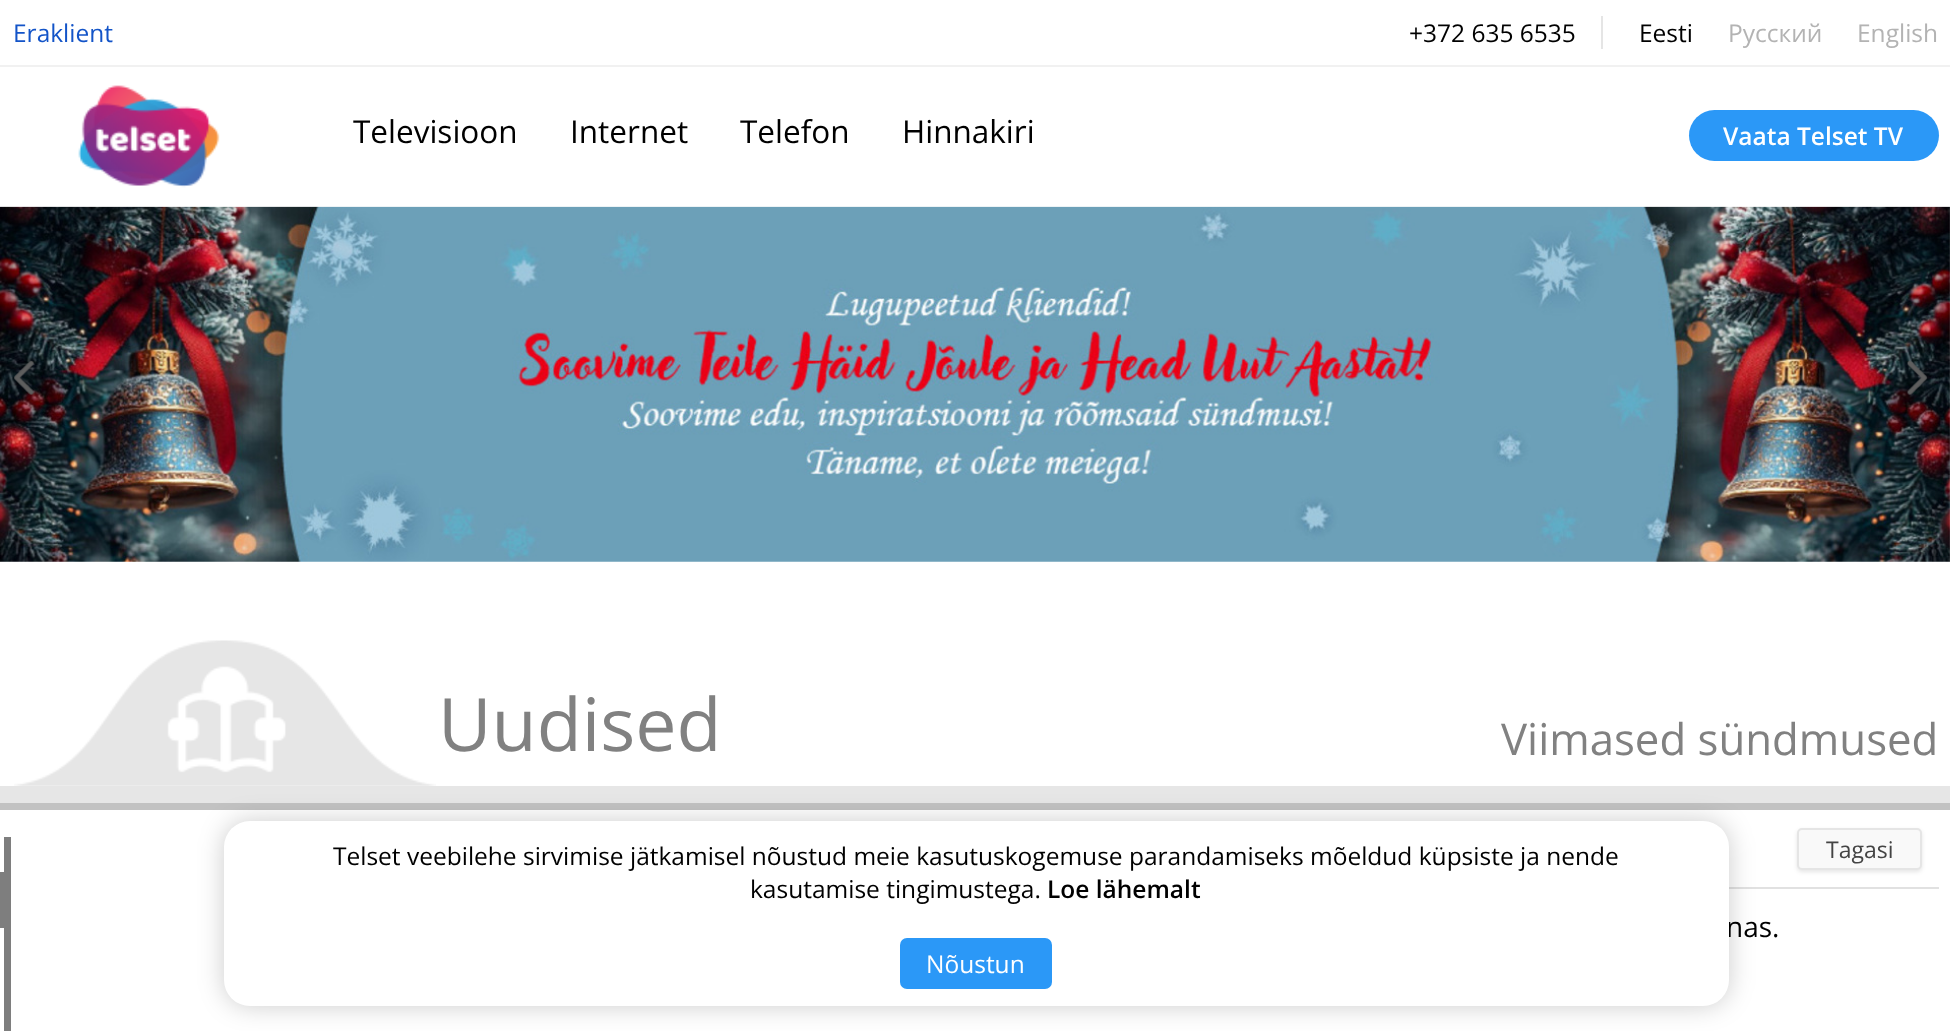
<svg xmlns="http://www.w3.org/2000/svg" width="1950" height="1031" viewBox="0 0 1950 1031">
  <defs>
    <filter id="blur1" x="-50%" y="-200%" width="200%" height="500%"><feGaussianBlur stdDeviation="13"/></filter>
    <filter id="blur2" x="-50%" y="-200%" width="200%" height="500%"><feGaussianBlur stdDeviation="2"/></filter>
  </defs>
  <rect width="100%" height="100%" fill="#ffffff"/>
  <rect x="0" y="65" width="1950" height="2" fill="#f1f1f1"/>
  <text x="13" y="42" font-family="Open Sans" font-size="24.5" fill="#1354c8">Eraklient</text>
  <text x="1409" y="42" font-family="Open Sans" font-size="24.5" fill="#000000">+372 635 6535</text>
  <rect x="1601" y="16" width="2" height="33" fill="#e5e5e5"/>
  <text x="1639" y="42" font-family="Open Sans" font-size="24.5" fill="#000000">Eesti</text>
  <text x="1728" y="42" font-family="Open Sans" font-size="24.5" fill="#b3b3b3">Русский</text>
  <text x="1857" y="42" font-family="Open Sans" font-size="24.5" fill="#b3b3b3">English</text>
  <image x="78" y="85" width="142" height="103" href="img1.png"/>
  <text x="353" y="143" font-family="Open Sans" font-size="31.5" fill="#000000">Televisioon</text>
  <text x="570" y="143" font-family="Open Sans" font-size="31.5" fill="#000000">Internet</text>
  <text x="740" y="143" font-family="Open Sans" font-size="31.5" fill="#000000">Telefon</text>
  <text x="902" y="143" font-family="Open Sans" font-size="31.5" fill="#000000">Hinnakiri</text>
  <rect x="1689" y="110" width="250" height="51" rx="25.5" fill="#2b98f7"/>
  <text x="1723" y="145" font-family="Open Sans" font-size="24.5" font-weight="600" fill="#ffffff">Vaata Telset TV</text>
  <image x="0" y="206" width="1950" height="356" href="img2.png"/>
  <image x="14" y="360" width="20" height="35" href="img3.png"/>
  <image x="1907" y="361" width="21" height="34" href="img4.png"/>
  <image x="14" y="640" width="422" height="146" href="img5.png"/>
  <text x="438" y="751" font-family="Open Sans" font-size="73.5" fill="#818181">Uudised</text>
  <text x="1501" y="755" font-family="Open Sans" font-size="43.75" fill="#818181">Viimased sündmused</text>
  <rect x="0" y="786" width="1950" height="17" fill="#e6e6e6"/>
  <rect x="0" y="803" width="1950" height="7" fill="#c2c2c2"/>
  <rect x="4" y="837" width="7" height="194" fill="#7e7e7e"/>
  <rect x="0" y="872" width="4" height="56" fill="#7e7e7e"/>
  <rect x="1729" y="887" width="210" height="2" fill="#e1e1e1"/>
  <rect x="224" y="821" width="1505" height="185" rx="26" fill="#000000" fill-opacity="0.2" filter="url(#blur1)"/>
  <text x="1726" y="937" font-family="Open Sans" font-size="28" fill="#000000">nas.</text>
  <rect x="224" y="821" width="1505" height="185" rx="26" fill="#ffffff"/>
  <text x="333" y="865" font-family="Open Sans" font-size="24.5" fill="#000000">Telset veebilehe sirvimise jätkamisel nõustud meie kasutuskogemuse parandamiseks mõeldud küpsiste ja nende</text>
  <text x="750" y="898" font-family="Open Sans" font-size="24.5" fill="#000000">kasutamise tingimustega.</text>
  <text x="1047" y="898" font-family="Open Sans" font-size="24.5" font-weight="600" fill="#000000">Loe lähemalt</text>
  <rect x="900" y="938" width="152" height="51" rx="7" fill="#2b98f7"/>
  <text x="926" y="973" font-family="Open Sans" font-size="24.5" fill="#ffffff">Nõustun</text>
  <rect x="1797" y="830" width="125" height="42" rx="5" fill="#000000" fill-opacity="0.1" filter="url(#blur2)"/>
  <rect x="1798" y="829" width="123" height="40" rx="4" fill="#f9f9f9" stroke="#e5e5e5" stroke-width="2"/>
  <text x="1826" y="858" font-family="Open Sans" font-size="23" fill="#444444">Tagasi</text>
</svg>
